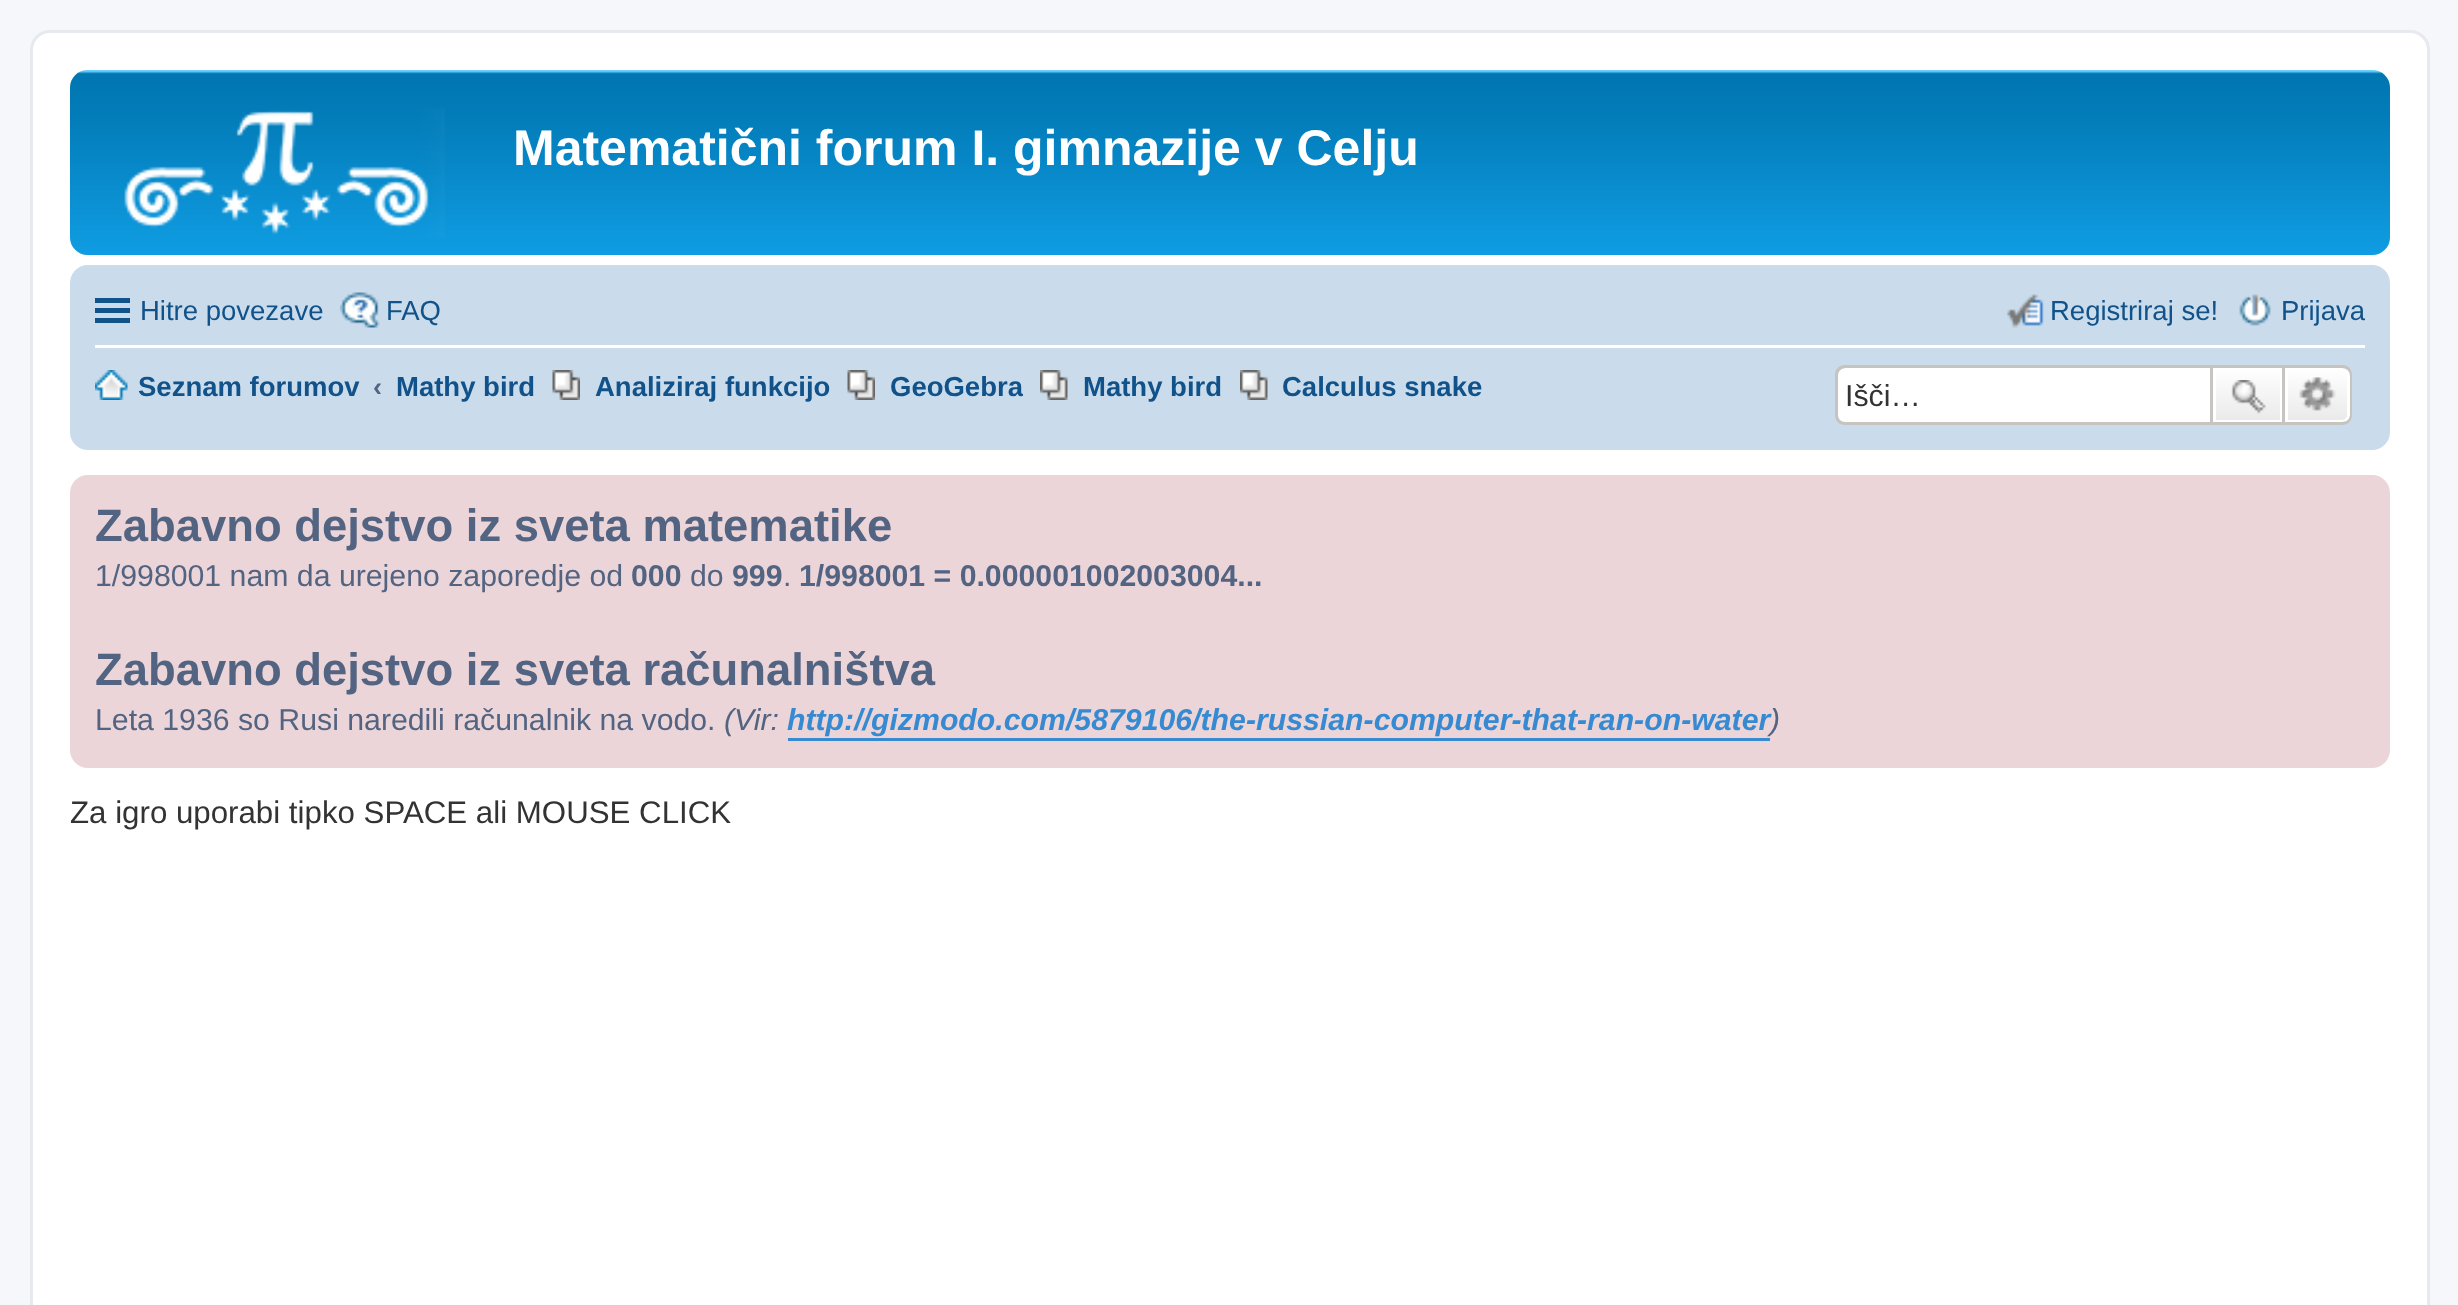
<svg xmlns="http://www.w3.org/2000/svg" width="2458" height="1305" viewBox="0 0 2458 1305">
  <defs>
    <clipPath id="clip1"><rect x="848" y="355" width="175" height="60"/></clipPath>
    <linearGradient id="g1" gradientUnits="userSpaceOnUse" x1="2248" y1="368" x2="2248" y2="423"><stop offset="0" stop-color="#ffffff"/><stop offset="1" stop-color="#e9e9e9"/></linearGradient>
    <linearGradient id="g2" gradientUnits="userSpaceOnUse" x1="2318" y1="368" x2="2318" y2="423"><stop offset="0" stop-color="#ffffff"/><stop offset="1" stop-color="#e9e9e9"/></linearGradient>
  </defs>
  <rect width="100%" height="100%" fill="#f5f7fa"/>
  <rect x="31.5" y="31.5" width="2397" height="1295" rx="18.5" fill="#ffffff" stroke="#e6e9ed" stroke-width="3"/>
  <image x="70" y="70" width="2320" height="185" href="img1.png"/>
  <image x="124" y="108" width="321" height="129" href="img2.png"/>
  <text x="513" y="165" font-family="Liberation Sans" font-size="50" font-weight="bold" fill="#ffffff">Matematični forum I. gimnazije v Celju</text>
  <rect x="70" y="265" width="2320" height="185" rx="18" fill="#cadceb"/>
  <rect x="95" y="298" width="35" height="5" fill="#105289"/>
  <rect x="95" y="308" width="35" height="5" fill="#105289"/>
  <rect x="95" y="318" width="35" height="5" fill="#105289"/>
  <text x="140" y="320" font-family="Liberation Sans" font-size="27.5" fill="#105289">Hitre povezave</text>
  <image x="340" y="292" width="40" height="36" href="img3.png"/>
  <text x="386" y="320" font-family="Liberation Sans" font-size="27.5" fill="#105289">FAQ</text>
  <image x="2006" y="294" width="38" height="34" href="img4.png"/>
  <text x="2050" y="320" font-family="Liberation Sans" font-size="27.5" fill="#105289">Registriraj se!</text>
  <image x="2239" y="294" width="32" height="32" href="img5.png"/>
  <text x="2281" y="320" font-family="Liberation Sans" font-size="27.5" fill="#105289">Prijava</text>
  <rect x="95" y="345" width="2270" height="3" fill="#ffffff"/>
  <image x="95" y="370" width="33" height="30" href="img6.png"/>
  <text x="138" y="396" font-family="Liberation Sans" font-size="27.5" font-weight="bold" fill="#105289">Seznam forumov</text>
  <text x="373" y="396" font-family="Liberation Sans" font-size="27.5" font-weight="bold" fill="#536482">‹</text>
  <text x="396" y="396" font-family="Liberation Sans" font-size="27.5" font-weight="bold" fill="#105289">Mathy bird</text>
  <image x="552" y="370" width="28" height="30" href="img7.png"/>
  <text x="595" y="396" font-family="Liberation Sans" font-size="27.5" font-weight="bold" fill="#105289">Analiziraj funkcijo</text>
  <image x="847" y="370" width="28" height="30" href="img8.png"/>
  <g clip-path="url(#clip1)">
    <text x="890" y="396" font-family="Liberation Sans" font-size="27.5" font-weight="bold" fill="#105289">GeoGebra</text>
  </g>
  <image x="1040" y="370" width="28" height="30" href="img9.png"/>
  <text x="1083" y="396" font-family="Liberation Sans" font-size="27.5" font-weight="bold" fill="#105289">Mathy bird</text>
  <image x="1240" y="370" width="28" height="30" href="img10.png"/>
  <text x="1282" y="396" font-family="Liberation Sans" font-size="27.5" font-weight="bold" fill="#105289">Calculus snake</text>
  <path d="M1846 368H2210V423H1846C1841.5 423 1838 419.5 1838 415V376C1838 371.5 1841.5 368 1846 368Z" fill="#ffffff"/>
  <path d="M1845 365H2210V425H1845C1839 425 1835 421 1835 415V375C1835 369 1839 365 1845 365ZM1845 368H2210V422H1845C1841 422 1838 419 1838 415V375C1838 371 1841 368 1845 368Z" fill="#c7c3bf" fill-rule="evenodd"/>
  <text x="1845" y="406" font-family="Liberation Sans" font-size="30.25" fill="#333333">Išči…</text>
  <rect x="2216" y="371" width="64" height="49" fill="url(#g1)"/>
  <rect x="2214.5" y="369.5" width="67" height="52" fill="none" stroke="#ffffff" stroke-width="3"/>
  <rect x="2211.5" y="366.5" width="72" height="57" fill="none" stroke="#c7c3bf" stroke-width="3"/>
  <image x="2231" y="380" width="35" height="34" href="img11.png"/>
  <path d="M2286.5 369.5H2342C2345.5 369.5 2348.5 372.5 2348.5 376V415C2348.5 418.5 2345.5 421.5 2342 421.5H2286.5Z" fill="url(#g2)" stroke="#ffffff" stroke-width="3"/>
  <path d="M2285 365H2342C2348 365 2352 369 2352 375V415C2352 421 2348 425 2342 425H2285ZM2285 368H2342C2347 368 2350 371 2350 375V415C2350 419 2347 422 2342 422H2285Z" fill="#c7c3bf" fill-rule="evenodd"/>
  <image x="2299" y="377" width="37" height="34" href="img12.png"/>
  <rect x="70" y="475" width="2320" height="293" rx="18" fill="#ecd5d8"/>
  <text x="95" y="541" font-family="Liberation Sans" font-size="45.4" font-weight="bold" fill="#536482">Zabavno dejstvo iz sveta matematike</text>
  <text x="95" y="586" font-family="Liberation Sans" font-size="30.25" fill="#536482">1/998001 nam da urejeno zaporedje od</text>
  <text x="631" y="586" font-family="Liberation Sans" font-size="30.25" font-weight="bold" fill="#536482">000</text>
  <text x="690" y="586" font-family="Liberation Sans" font-size="30.25" fill="#536482">do</text>
  <text x="732" y="586" font-family="Liberation Sans" font-size="30.25" font-weight="bold" fill="#536482">999</text>
  <text x="783" y="586" font-family="Liberation Sans" font-size="30.25" fill="#536482">.</text>
  <text x="799" y="586" font-family="Liberation Sans" font-size="30.25" font-weight="bold" fill="#536482">1/998001 = 0.000001002003004...</text>
  <text x="95" y="685" font-family="Liberation Sans" font-size="45.4" font-weight="bold" fill="#536482">Zabavno dejstvo iz sveta računalništva</text>
  <text x="95" y="730" font-family="Liberation Sans" font-size="30.25" fill="#536482">Leta 1936 so Rusi naredili računalnik na vodo.</text>
  <text x="724" y="730" font-family="Liberation Sans" font-size="30.25" font-style="italic" fill="#536482">(Vir:</text>
  <text x="787" y="730" font-family="Liberation Sans" font-size="30.25" font-weight="bold" font-style="italic" fill="#368ad2">http://gizmodo.com/5879106/the-russian-computer-that-ran-on-water</text>
  <rect x="788" y="738" width="982" height="3" fill="#368ad2"/>
  <text x="1770" y="730" font-family="Liberation Sans" font-size="30.25" font-style="italic" fill="#536482">)</text>
  <text x="70" y="823" font-family="Liberation Sans" font-size="31.25" fill="#333333">Za igro uporabi tipko SPACE ali MOUSE CLICK</text>
</svg>
